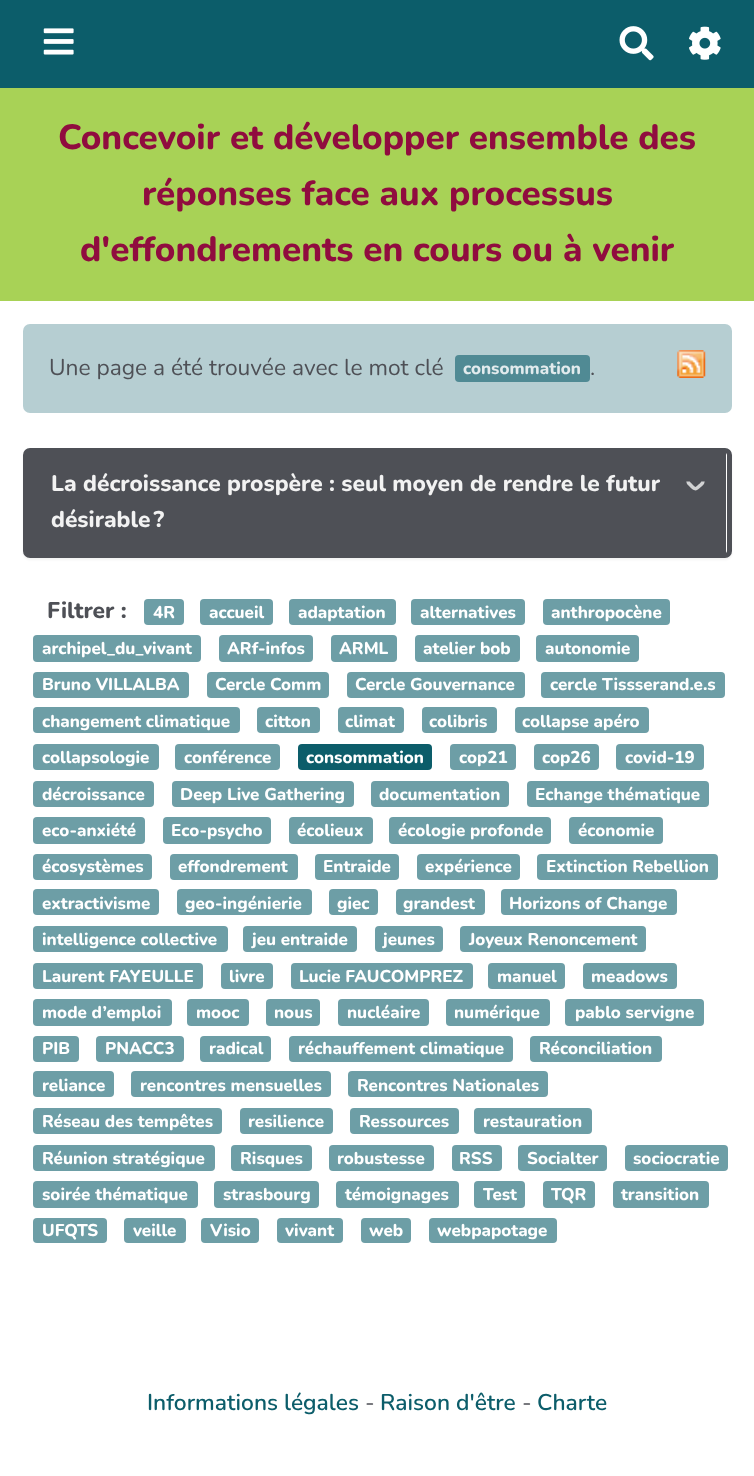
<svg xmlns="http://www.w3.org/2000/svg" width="754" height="1476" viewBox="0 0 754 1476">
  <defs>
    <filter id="blur1" x="-50%" y="-200%" width="200%" height="500%"><feGaussianBlur stdDeviation="1"/></filter>
  </defs>
  <rect width="100%" height="100%" fill="#ffffff"/>
  <rect x="0" y="0" width="754" height="88" fill="#0c5d6a"/>
  <image x="43" y="28" width="31" height="27" href="img1.png"/>
  <image x="619" y="26" width="35" height="35" href="img2.png"/>
  <image x="689" y="26" width="32" height="34" href="img3.png"/>
  <rect x="0" y="88" width="754" height="213" fill="#a8d256"/>
  <text x="58" y="149" font-family="Nunito" font-size="35" font-weight="800" fill="#900c3f">Concevoir et développer ensemble des</text>
  <text x="142" y="205" font-family="Nunito" font-size="35" font-weight="800" fill="#900c3f">réponses face aux processus</text>
  <text x="80" y="261" font-family="Nunito" font-size="35" font-weight="800" fill="#900c3f">d'effondrements en cours ou à venir</text>
  <rect x="23" y="324" width="709" height="89" rx="7" fill="#b6ced2"/>
  <text x="49" y="375" font-family="Nunito" font-size="22.75" fill="#4e5056">Une page a été trouvée avec le mot clé</text>
  <rect x="455" y="355" width="135" height="27" rx="4" fill="#508a94"/>
  <text x="463" y="374" font-family="Nunito" font-size="17" font-weight="800" fill="#e2ebed">consommation</text>
  <text x="590" y="375" font-family="Nunito" font-size="22.75" fill="#4e5056">.</text>
  <image x="677" y="350" width="29" height="28" href="img4.png"/>
  <rect x="23" y="450" width="709" height="110" rx="7" fill="#000000" fill-opacity="0.05" filter="url(#blur1)"/>
  <rect x="25.5" y="450.5" width="704" height="105" rx="4.5" fill="#ffffff" stroke="#4e5056" stroke-width="5"/>
  <rect x="28" y="453" width="698" height="100" fill="#4e5056"/>
  <text x="51" y="491" font-family="Nunito" font-size="22.75" font-weight="800" fill="#f2f2f2">La décroissance prospère : seul moyen de rendre le futur</text>
  <text x="51" y="527" font-family="Nunito" font-size="22.75" font-weight="800" fill="#f2f2f2">désirable ?</text>
  <path d="M703 481.5C703 483.5 701 484.5 700 485.5C695.5 490 694.5 489.5 690.5 485C689.5 484 688 483 688 481.5" fill="none" stroke="#d1d2d3" stroke-width="3.5"/>
  <text x="47" y="618" font-family="Nunito" font-size="22.75" font-weight="800" fill="#4e5056">Filtrer :</text>
  <rect x="144" y="599" width="40" height="26" rx="4" fill="#6d9ea6"/>
  <text x="153" y="618" font-family="Nunito" font-size="17" font-weight="800" fill="#ffffff">4R</text>
  <rect x="200" y="599" width="73" height="26" rx="4" fill="#6d9ea6"/>
  <text x="209" y="618" font-family="Nunito" font-size="17" font-weight="800" fill="#ffffff">accueil</text>
  <rect x="289" y="599" width="107" height="26" rx="4" fill="#6d9ea6"/>
  <text x="298" y="618" font-family="Nunito" font-size="17" font-weight="800" fill="#ffffff">adaptation</text>
  <rect x="411" y="599" width="114" height="26" rx="4" fill="#6d9ea6"/>
  <text x="420" y="618" font-family="Nunito" font-size="17" font-weight="800" fill="#ffffff">alternatives</text>
  <rect x="543" y="599" width="127" height="26" rx="4" fill="#6d9ea6"/>
  <text x="551" y="618" font-family="Nunito" font-size="17" font-weight="800" fill="#ffffff">anthropocène</text>
  <rect x="33" y="635" width="168" height="27" rx="4" fill="#6d9ea6"/>
  <text x="42" y="654" font-family="Nunito" font-size="17" font-weight="800" fill="#ffffff">archipel_du_vivant</text>
  <rect x="219" y="635" width="94" height="27" rx="4" fill="#6d9ea6"/>
  <text x="227" y="654" font-family="Nunito" font-size="17" font-weight="800" fill="#ffffff">ARf-infos</text>
  <rect x="331" y="635" width="66" height="27" rx="4" fill="#6d9ea6"/>
  <text x="339" y="654" font-family="Nunito" font-size="17" font-weight="800" fill="#ffffff">ARML</text>
  <rect x="415" y="635" width="105" height="27" rx="4" fill="#6d9ea6"/>
  <text x="423" y="654" font-family="Nunito" font-size="17" font-weight="800" fill="#ffffff">atelier bob</text>
  <rect x="536" y="635" width="103" height="27" rx="4" fill="#6d9ea6"/>
  <text x="545" y="654" font-family="Nunito" font-size="17" font-weight="800" fill="#ffffff">autonomie</text>
  <rect x="33" y="672" width="156" height="26" rx="4" fill="#6d9ea6"/>
  <text x="42" y="690" font-family="Nunito" font-size="17" font-weight="800" fill="#ffffff">Bruno VILLALBA</text>
  <rect x="207" y="672" width="122" height="26" rx="4" fill="#6d9ea6"/>
  <text x="215" y="690" font-family="Nunito" font-size="17" font-weight="800" fill="#ffffff">Cercle Comm</text>
  <rect x="347" y="672" width="178" height="26" rx="4" fill="#6d9ea6"/>
  <text x="355" y="690" font-family="Nunito" font-size="17" font-weight="800" fill="#ffffff">Cercle Gouvernance</text>
  <rect x="541" y="672" width="184" height="26" rx="4" fill="#6d9ea6"/>
  <text x="550" y="690" font-family="Nunito" font-size="17" font-weight="800" fill="#ffffff">cercle Tissserand.e.s</text>
  <rect x="33" y="707" width="207" height="26" rx="4" fill="#6d9ea6"/>
  <text x="42" y="727" font-family="Nunito" font-size="17" font-weight="800" fill="#ffffff">changement climatique</text>
  <rect x="257" y="707" width="63" height="26" rx="4" fill="#6d9ea6"/>
  <text x="265" y="727" font-family="Nunito" font-size="17" font-weight="800" fill="#ffffff">citton</text>
  <rect x="338" y="707" width="66" height="26" rx="4" fill="#6d9ea6"/>
  <text x="345" y="727" font-family="Nunito" font-size="17" font-weight="800" fill="#ffffff">climat</text>
  <rect x="422" y="707" width="75" height="26" rx="4" fill="#6d9ea6"/>
  <text x="429" y="727" font-family="Nunito" font-size="17" font-weight="800" fill="#ffffff">colibris</text>
  <rect x="515" y="707" width="134" height="26" rx="4" fill="#6d9ea6"/>
  <text x="522" y="727" font-family="Nunito" font-size="17" font-weight="800" fill="#ffffff">collapse apéro</text>
  <rect x="33" y="744" width="126" height="26" rx="4" fill="#6d9ea6"/>
  <text x="42" y="763" font-family="Nunito" font-size="17" font-weight="800" fill="#ffffff">collapsologie</text>
  <rect x="175" y="744" width="105" height="26" rx="4" fill="#6d9ea6"/>
  <text x="184" y="763" font-family="Nunito" font-size="17" font-weight="800" fill="#ffffff">conférence</text>
  <rect x="298" y="744" width="134" height="26" rx="4" fill="#0c5d6a"/>
  <text x="306" y="763" font-family="Nunito" font-size="17" font-weight="800" fill="#ffffff">consommation</text>
  <rect x="450" y="744" width="66" height="26" rx="4" fill="#6d9ea6"/>
  <text x="459" y="763" font-family="Nunito" font-size="17" font-weight="800" fill="#ffffff">cop21</text>
  <rect x="534" y="744" width="65" height="26" rx="4" fill="#6d9ea6"/>
  <text x="542" y="763" font-family="Nunito" font-size="17" font-weight="800" fill="#ffffff">cop26</text>
  <rect x="616" y="744" width="88" height="26" rx="4" fill="#6d9ea6"/>
  <text x="625" y="763" font-family="Nunito" font-size="17" font-weight="800" fill="#ffffff">covid-19</text>
  <rect x="33" y="781" width="121" height="26" rx="4" fill="#6d9ea6"/>
  <text x="42" y="800" font-family="Nunito" font-size="17" font-weight="800" fill="#ffffff">décroissance</text>
  <rect x="172" y="781" width="182" height="26" rx="4" fill="#6d9ea6"/>
  <text x="180" y="800" font-family="Nunito" font-size="17" font-weight="800" fill="#ffffff">Deep Live Gathering</text>
  <rect x="371" y="781" width="138" height="26" rx="4" fill="#6d9ea6"/>
  <text x="379" y="800" font-family="Nunito" font-size="17" font-weight="800" fill="#ffffff">documentation</text>
  <rect x="527" y="781" width="182" height="26" rx="4" fill="#6d9ea6"/>
  <text x="535" y="800" font-family="Nunito" font-size="17" font-weight="800" fill="#ffffff">Echange thématique</text>
  <rect x="33" y="817" width="112" height="27" rx="4" fill="#6d9ea6"/>
  <text x="42" y="836" font-family="Nunito" font-size="17" font-weight="800" fill="#ffffff">eco-anxiété</text>
  <rect x="163" y="817" width="108" height="27" rx="4" fill="#6d9ea6"/>
  <text x="171" y="836" font-family="Nunito" font-size="17" font-weight="800" fill="#ffffff">Eco-psycho</text>
  <rect x="289" y="817" width="84" height="27" rx="4" fill="#6d9ea6"/>
  <text x="297" y="836" font-family="Nunito" font-size="17" font-weight="800" fill="#ffffff">écolieux</text>
  <rect x="389" y="817" width="162" height="27" rx="4" fill="#6d9ea6"/>
  <text x="398" y="836" font-family="Nunito" font-size="17" font-weight="800" fill="#ffffff">écologie profonde</text>
  <rect x="569" y="817" width="94" height="27" rx="4" fill="#6d9ea6"/>
  <text x="578" y="836" font-family="Nunito" font-size="17" font-weight="800" fill="#ffffff">économie</text>
  <rect x="33" y="854" width="119" height="26" rx="4" fill="#6d9ea6"/>
  <text x="42" y="872" font-family="Nunito" font-size="17" font-weight="800" fill="#ffffff">écosystèmes</text>
  <rect x="170" y="854" width="128" height="26" rx="4" fill="#6d9ea6"/>
  <text x="178" y="872" font-family="Nunito" font-size="17" font-weight="800" fill="#ffffff">effondrement</text>
  <rect x="315" y="854" width="84" height="26" rx="4" fill="#6d9ea6"/>
  <text x="323" y="872" font-family="Nunito" font-size="17" font-weight="800" fill="#ffffff">Entraide</text>
  <rect x="417" y="854" width="103" height="26" rx="4" fill="#6d9ea6"/>
  <text x="425" y="872" font-family="Nunito" font-size="17" font-weight="800" fill="#ffffff">expérience</text>
  <rect x="537" y="854" width="181" height="26" rx="4" fill="#6d9ea6"/>
  <text x="546" y="872" font-family="Nunito" font-size="17" font-weight="800" fill="#ffffff">Extinction Rebellion</text>
  <rect x="33" y="889" width="126" height="26" rx="4" fill="#6d9ea6"/>
  <text x="42" y="909" font-family="Nunito" font-size="17" font-weight="800" fill="#ffffff">extractivisme</text>
  <rect x="177" y="889" width="135" height="26" rx="4" fill="#6d9ea6"/>
  <text x="185" y="909" font-family="Nunito" font-size="17" font-weight="800" fill="#ffffff">geo-ingénierie</text>
  <rect x="329" y="889" width="49" height="26" rx="4" fill="#6d9ea6"/>
  <text x="337" y="909" font-family="Nunito" font-size="17" font-weight="800" fill="#ffffff">giec</text>
  <rect x="396" y="889" width="89" height="26" rx="4" fill="#6d9ea6"/>
  <text x="403" y="909" font-family="Nunito" font-size="17" font-weight="800" fill="#ffffff">grandest</text>
  <rect x="501" y="889" width="176" height="26" rx="4" fill="#6d9ea6"/>
  <text x="509" y="909" font-family="Nunito" font-size="17" font-weight="800" fill="#ffffff">Horizons of Change</text>
  <rect x="33" y="926" width="195" height="26" rx="4" fill="#6d9ea6"/>
  <text x="42" y="945" font-family="Nunito" font-size="17" font-weight="800" fill="#ffffff">intelligence collective</text>
  <rect x="243" y="926" width="114" height="26" rx="4" fill="#6d9ea6"/>
  <text x="252" y="945" font-family="Nunito" font-size="17" font-weight="800" fill="#ffffff">jeu entraide</text>
  <rect x="375" y="926" width="68" height="26" rx="4" fill="#6d9ea6"/>
  <text x="383" y="945" font-family="Nunito" font-size="17" font-weight="800" fill="#ffffff">jeunes</text>
  <rect x="460" y="926" width="186" height="26" rx="4" fill="#6d9ea6"/>
  <text x="469" y="945" font-family="Nunito" font-size="17" font-weight="800" fill="#ffffff">Joyeux Renoncement</text>
  <rect x="33" y="963" width="170" height="26" rx="4" fill="#6d9ea6"/>
  <text x="42" y="982" font-family="Nunito" font-size="17" font-weight="800" fill="#ffffff">Laurent FAYEULLE</text>
  <rect x="221" y="963" width="52" height="26" rx="4" fill="#6d9ea6"/>
  <text x="229" y="982" font-family="Nunito" font-size="17" font-weight="800" fill="#ffffff">livre</text>
  <rect x="291" y="963" width="182" height="26" rx="4" fill="#6d9ea6"/>
  <text x="299" y="982" font-family="Nunito" font-size="17" font-weight="800" fill="#ffffff">Lucie FAUCOMPREZ</text>
  <rect x="488" y="963" width="77" height="26" rx="4" fill="#6d9ea6"/>
  <text x="497" y="982" font-family="Nunito" font-size="17" font-weight="800" fill="#ffffff">manuel</text>
  <rect x="583" y="963" width="94" height="26" rx="4" fill="#6d9ea6"/>
  <text x="591" y="982" font-family="Nunito" font-size="17" font-weight="800" fill="#ffffff">meadows</text>
  <rect x="33" y="999" width="139" height="27" rx="4" fill="#6d9ea6"/>
  <text x="42" y="1018" font-family="Nunito" font-size="17" font-weight="800" fill="#ffffff">mode d’emploi</text>
  <rect x="187" y="999" width="62" height="27" rx="4" fill="#6d9ea6"/>
  <text x="196" y="1018" font-family="Nunito" font-size="17" font-weight="800" fill="#ffffff">mooc</text>
  <rect x="266" y="999" width="54" height="27" rx="4" fill="#6d9ea6"/>
  <text x="274" y="1018" font-family="Nunito" font-size="17" font-weight="800" fill="#ffffff">nous</text>
  <rect x="338" y="999" width="91" height="27" rx="4" fill="#6d9ea6"/>
  <text x="347" y="1018" font-family="Nunito" font-size="17" font-weight="800" fill="#ffffff">nucléaire</text>
  <rect x="446" y="999" width="104" height="27" rx="4" fill="#6d9ea6"/>
  <text x="454" y="1018" font-family="Nunito" font-size="17" font-weight="800" fill="#ffffff">numérique</text>
  <rect x="565" y="999" width="139" height="27" rx="4" fill="#6d9ea6"/>
  <text x="575" y="1018" font-family="Nunito" font-size="17" font-weight="800" fill="#ffffff">pablo servigne</text>
  <rect x="33" y="1036" width="46" height="26" rx="4" fill="#6d9ea6"/>
  <text x="42" y="1054" font-family="Nunito" font-size="17" font-weight="800" fill="#ffffff">PIB</text>
  <rect x="96" y="1036" width="88" height="26" rx="4" fill="#6d9ea6"/>
  <text x="105" y="1054" font-family="Nunito" font-size="17" font-weight="800" fill="#ffffff">PNACC3</text>
  <rect x="200" y="1036" width="71" height="26" rx="4" fill="#6d9ea6"/>
  <text x="209" y="1054" font-family="Nunito" font-size="17" font-weight="800" fill="#ffffff">radical</text>
  <rect x="289" y="1036" width="224" height="26" rx="4" fill="#6d9ea6"/>
  <text x="298" y="1054" font-family="Nunito" font-size="17" font-weight="800" fill="#ffffff">réchauffement climatique</text>
  <rect x="530" y="1036" width="132" height="26" rx="4" fill="#6d9ea6"/>
  <text x="539" y="1054" font-family="Nunito" font-size="17" font-weight="800" fill="#ffffff">Réconciliation</text>
  <rect x="33" y="1071" width="81" height="26" rx="4" fill="#6d9ea6"/>
  <text x="42" y="1091" font-family="Nunito" font-size="17" font-weight="800" fill="#ffffff">reliance</text>
  <rect x="131" y="1071" width="200" height="26" rx="4" fill="#6d9ea6"/>
  <text x="140" y="1091" font-family="Nunito" font-size="17" font-weight="800" fill="#ffffff">rencontres mensuelles</text>
  <rect x="348" y="1071" width="200" height="26" rx="4" fill="#6d9ea6"/>
  <text x="357" y="1091" font-family="Nunito" font-size="17" font-weight="800" fill="#ffffff">Rencontres Nationales</text>
  <rect x="33" y="1108" width="189" height="26" rx="4" fill="#6d9ea6"/>
  <text x="42" y="1127" font-family="Nunito" font-size="17" font-weight="800" fill="#ffffff">Réseau des tempêtes</text>
  <rect x="240" y="1108" width="93" height="26" rx="4" fill="#6d9ea6"/>
  <text x="248" y="1127" font-family="Nunito" font-size="17" font-weight="800" fill="#ffffff">resilience</text>
  <rect x="350" y="1108" width="109" height="26" rx="4" fill="#6d9ea6"/>
  <text x="359" y="1127" font-family="Nunito" font-size="17" font-weight="800" fill="#ffffff">Ressources</text>
  <rect x="474" y="1108" width="118" height="26" rx="4" fill="#6d9ea6"/>
  <text x="483" y="1127" font-family="Nunito" font-size="17" font-weight="800" fill="#ffffff">restauration</text>
  <rect x="33" y="1145" width="182" height="26" rx="4" fill="#6d9ea6"/>
  <text x="42" y="1164" font-family="Nunito" font-size="17" font-weight="800" fill="#ffffff">Réunion stratégique</text>
  <rect x="231" y="1145" width="81" height="26" rx="4" fill="#6d9ea6"/>
  <text x="240" y="1164" font-family="Nunito" font-size="17" font-weight="800" fill="#ffffff">Risques</text>
  <rect x="329" y="1145" width="105" height="26" rx="4" fill="#6d9ea6"/>
  <text x="337" y="1164" font-family="Nunito" font-size="17" font-weight="800" fill="#ffffff">robustesse</text>
  <rect x="452" y="1145" width="50" height="26" rx="4" fill="#6d9ea6"/>
  <text x="459" y="1164" font-family="Nunito" font-size="17" font-weight="800" fill="#ffffff">RSS</text>
  <rect x="518" y="1145" width="89" height="26" rx="4" fill="#6d9ea6"/>
  <text x="527" y="1164" font-family="Nunito" font-size="17" font-weight="800" fill="#ffffff">Socialter</text>
  <rect x="625" y="1145" width="103" height="26" rx="4" fill="#6d9ea6"/>
  <text x="633" y="1164" font-family="Nunito" font-size="17" font-weight="800" fill="#ffffff">sociocratie</text>
  <rect x="33" y="1181" width="165" height="27" rx="4" fill="#6d9ea6"/>
  <text x="42" y="1200" font-family="Nunito" font-size="17" font-weight="800" fill="#ffffff">soirée thématique</text>
  <rect x="214" y="1181" width="105" height="27" rx="4" fill="#6d9ea6"/>
  <text x="223" y="1200" font-family="Nunito" font-size="17" font-weight="800" fill="#ffffff">strasbourg</text>
  <rect x="336" y="1181" width="123" height="27" rx="4" fill="#6d9ea6"/>
  <text x="345" y="1200" font-family="Nunito" font-size="17" font-weight="800" fill="#ffffff">témoignages</text>
  <rect x="474" y="1181" width="51" height="27" rx="4" fill="#6d9ea6"/>
  <text x="483" y="1200" font-family="Nunito" font-size="17" font-weight="800" fill="#ffffff">Test</text>
  <rect x="543" y="1181" width="52" height="27" rx="4" fill="#6d9ea6"/>
  <text x="551" y="1200" font-family="Nunito" font-size="17" font-weight="800" fill="#ffffff">TQR</text>
  <rect x="613" y="1181" width="96" height="27" rx="4" fill="#6d9ea6"/>
  <text x="621" y="1200" font-family="Nunito" font-size="17" font-weight="800" fill="#ffffff">transition</text>
  <rect x="33" y="1218" width="74" height="25" rx="4" fill="#6d9ea6"/>
  <text x="42" y="1236" font-family="Nunito" font-size="17" font-weight="800" fill="#ffffff">UFQTS</text>
  <rect x="124" y="1218" width="62" height="25" rx="4" fill="#6d9ea6"/>
  <text x="133" y="1236" font-family="Nunito" font-size="17" font-weight="800" fill="#ffffff">veille</text>
  <rect x="201" y="1218" width="58" height="25" rx="4" fill="#6d9ea6"/>
  <text x="210" y="1236" font-family="Nunito" font-size="17" font-weight="800" fill="#ffffff">Visio</text>
  <rect x="277" y="1218" width="66" height="25" rx="4" fill="#6d9ea6"/>
  <text x="285" y="1236" font-family="Nunito" font-size="17" font-weight="800" fill="#ffffff">vivant</text>
  <rect x="361" y="1218" width="50" height="25" rx="4" fill="#6d9ea6"/>
  <text x="369" y="1236" font-family="Nunito" font-size="17" font-weight="800" fill="#ffffff">web</text>
  <rect x="429" y="1218" width="128" height="25" rx="4" fill="#6d9ea6"/>
  <text x="437" y="1236" font-family="Nunito" font-size="17" font-weight="800" fill="#ffffff">webpapotage</text>
  <text x="147" y="1410" font-family="Nunito" font-size="22.75" font-weight="600" fill="#0c5d6a">Informations légales</text>
  <text x="365" y="1410" font-family="Nunito" font-size="22.75" fill="#4e5056">-</text>
  <text x="380" y="1410" font-family="Nunito" font-size="22.75" font-weight="600" fill="#0c5d6a">Raison d'être</text>
  <text x="522" y="1410" font-family="Nunito" font-size="22.75" fill="#4e5056">-</text>
  <text x="537" y="1410" font-family="Nunito" font-size="22.75" font-weight="600" fill="#0c5d6a">Charte</text>
</svg>
